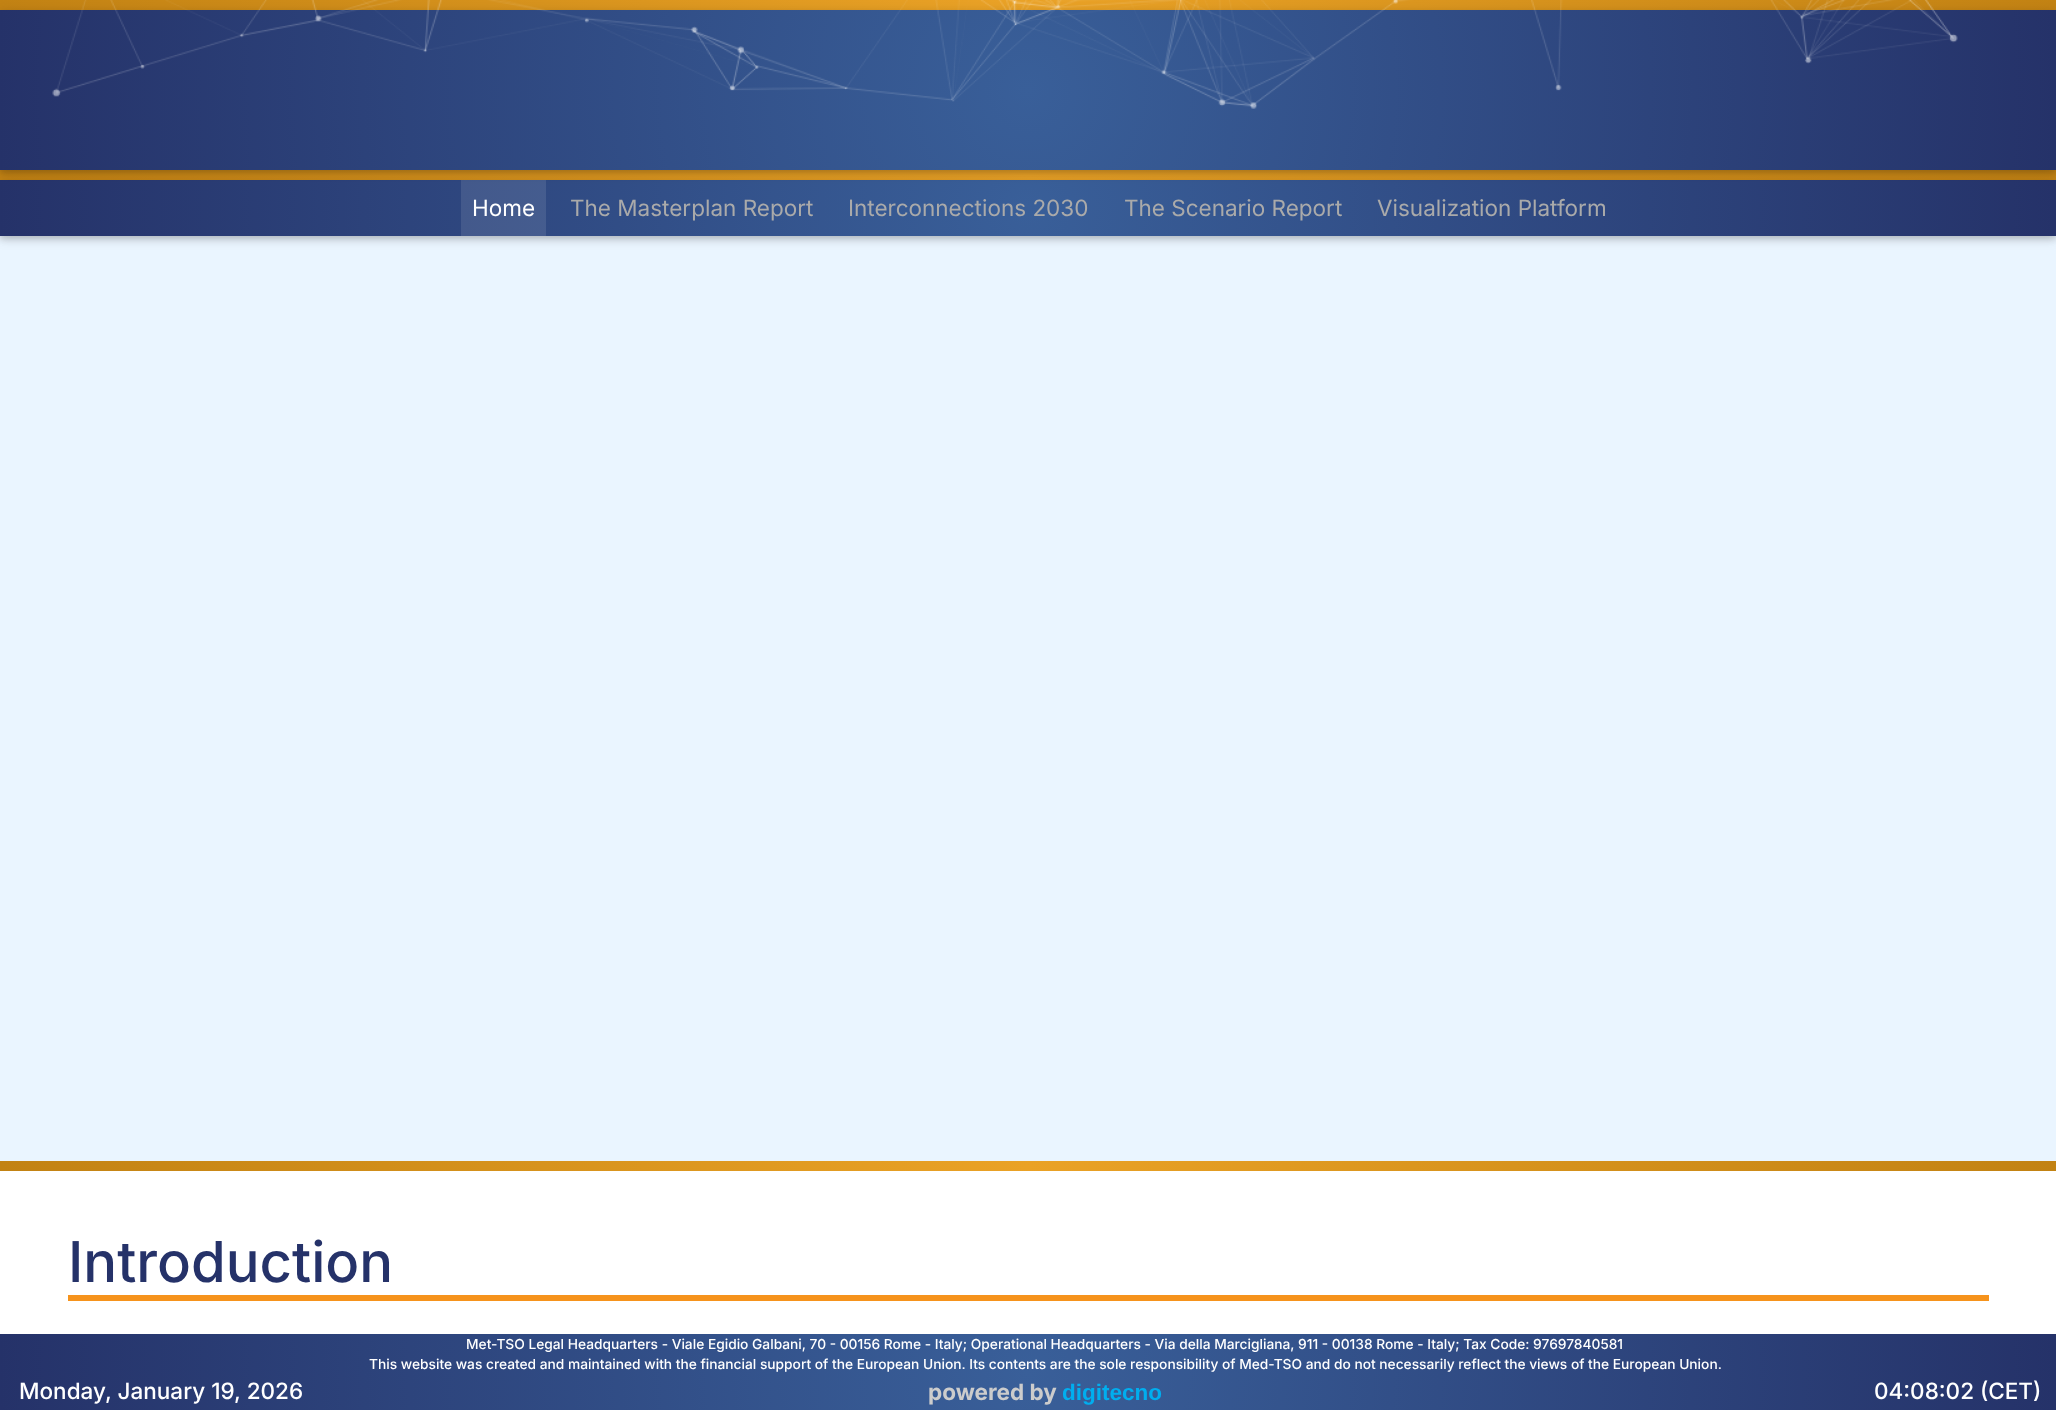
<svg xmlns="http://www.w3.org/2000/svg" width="2056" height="1410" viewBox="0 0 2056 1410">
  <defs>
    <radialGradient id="g1" gradientUnits="userSpaceOnUse" cx="1028" cy="5" r="1028"><stop offset="0" stop-color="#eaa226"/><stop offset="1" stop-color="#c28213"/></radialGradient>
    <radialGradient id="g2" gradientUnits="userSpaceOnUse" cx="1028" cy="175" r="1028"><stop offset="0" stop-color="#eaa226"/><stop offset="1" stop-color="#c28213"/></radialGradient>
    <filter id="blur1" x="-50%" y="-200%" width="200%" height="500%"><feGaussianBlur stdDeviation="6"/></filter>
    <filter id="blur2" x="-50%" y="-200%" width="200%" height="500%"><feGaussianBlur stdDeviation="3"/></filter>
    <radialGradient id="g3" gradientUnits="userSpaceOnUse" cx="1028" cy="208" r="1029"><stop offset="0" stop-color="#395f99"/><stop offset="1" stop-color="#253269"/></radialGradient>
    <radialGradient id="g4" gradientUnits="userSpaceOnUse" cx="1028" cy="208" r="1029"><stop offset="0" stop-color="#4d6fa3"/><stop offset="1" stop-color="#3b4778"/></radialGradient>
    <radialGradient id="g5" gradientUnits="userSpaceOnUse" cx="1028" cy="90" r="1031"><stop offset="0" stop-color="#395f99"/><stop offset="1" stop-color="#253269"/></radialGradient>
    <radialGradient id="g6" gradientUnits="userSpaceOnUse" cx="1028" cy="1166" r="1028"><stop offset="0" stop-color="#eaa226"/><stop offset="1" stop-color="#c28213"/></radialGradient>
    <radialGradient id="g7" gradientUnits="userSpaceOnUse" cx="1028" cy="1372" r="1029"><stop offset="0" stop-color="#395f99"/><stop offset="1" stop-color="#253269"/></radialGradient>
  </defs>
  <rect width="100%" height="100%" fill="#ffffff"/>
  <rect x="0" y="0" width="2056" height="10" fill="url(#g1)"/>
  <rect x="0" y="170" width="2056" height="10" fill="url(#g2)"/>
  <rect x="0" y="236" width="2056" height="925" fill="#eaf5ff"/>
  <rect x="0" y="183" width="2056" height="56" fill="#000000" fill-opacity="0.12" filter="url(#blur1)"/>
  <rect x="0" y="183" width="2056" height="56" fill="#000000" fill-opacity="0.16" filter="url(#blur2)"/>
  <rect x="0" y="180" width="2056" height="56" fill="url(#g3)"/>
  <rect x="461" y="180" width="85" height="56" fill="url(#g4)"/>
  <rect x="0" y="13" width="2056" height="160" fill="#000000" fill-opacity="0.12" filter="url(#blur1)"/>
  <rect x="0" y="13" width="2056" height="160" fill="#000000" fill-opacity="0.16" filter="url(#blur2)"/>
  <rect x="0" y="10" width="2056" height="160" fill="url(#g5)"/>
  <image x="52" y="0" width="1906" height="109" href="img1.png"/>
  <text x="472" y="216" font-family="Inter" font-size="22.5" fill="#ffffff">Home</text>
  <text x="570" y="216" font-family="Inter" font-size="22.5" fill="#aaaaaa">The Masterplan Report</text>
  <text x="848" y="216" font-family="Inter" font-size="22.5" fill="#aaaaaa">Interconnections 2030</text>
  <text x="1124" y="216" font-family="Inter" font-size="22.5" fill="#aaaaaa">The Scenario Report</text>
  <text x="1377" y="216" font-family="Inter" font-size="22.5" fill="#aaaaaa">Visualization Platform</text>
  <rect x="0" y="1161" width="2056" height="10" fill="url(#g6)"/>
  <rect x="68" y="1295" width="1921" height="6" fill="#f6931c"/>
  <text x="68" y="1282" font-family="Inter" font-size="56.25" font-weight="500" fill="#253269">Introduction</text>
  <rect x="0" y="1334" width="2056" height="76" fill="url(#g7)"/>
  <text x="19" y="1399" font-family="Inter" font-size="22.5" font-weight="500" fill="#ffffff">Monday, January 19, 2026</text>
  <text x="466" y="1349" font-family="Inter" font-size="13.75" font-weight="500" fill="#ffffff">Met-TSO Legal Headquarters - Viale Egidio Galbani, 70 - 00156 Rome - Italy; Operational Headquarters - Via della Marcigliana, 911 - 00138 Rome - Italy; Tax Code: 97697840581</text>
  <text x="369" y="1369" font-family="Inter" font-size="13.75" font-weight="500" fill="#ffffff">This website was created and maintained with the financial support of the European Union. Its contents are the sole responsibility of Med-TSO and do not necessarily reflect the views of the European Union.</text>
  <text x="928" y="1400" font-family="Inter" font-size="22.5" font-weight="bold" fill="#cccccc">powered by</text>
  <text x="1062" y="1400" font-family="Liberation Sans" font-size="22.5" font-weight="bold" fill="#00aeef">digitecno</text>
  <text x="1874" y="1399" font-family="Inter" font-size="22.5" font-weight="500" fill="#ffffff">04:08:02 (CET)</text>
</svg>
